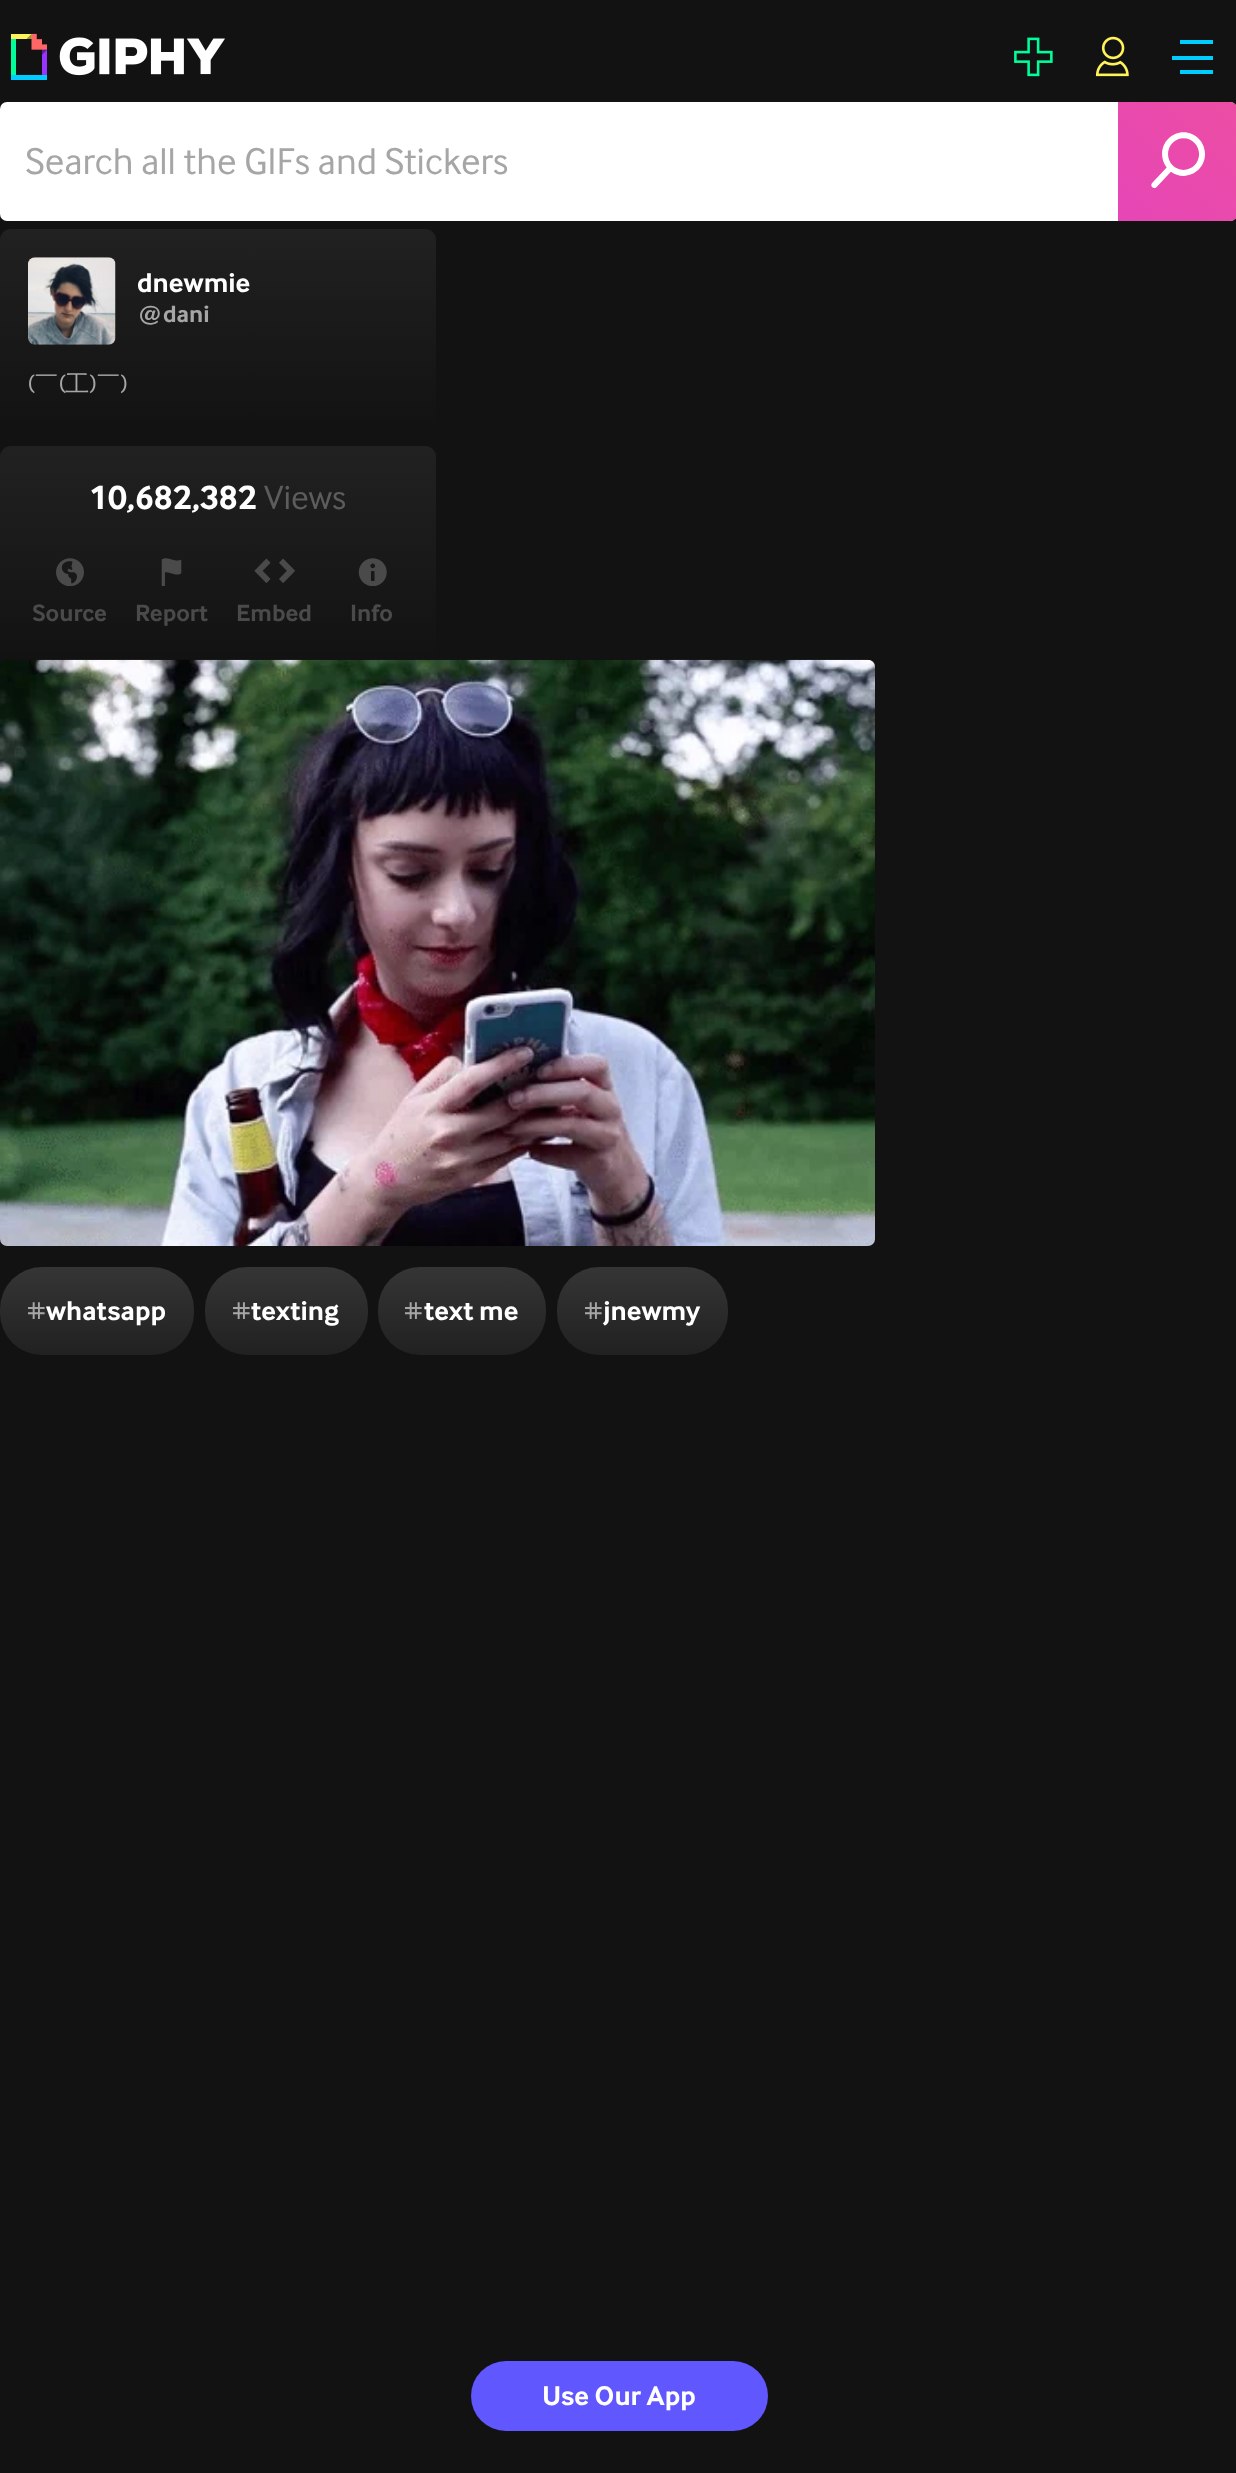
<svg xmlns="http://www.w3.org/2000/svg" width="1236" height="2473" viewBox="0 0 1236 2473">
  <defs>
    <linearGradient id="g1" gradientUnits="userSpaceOnUse" x1="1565" y1="667" x2="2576" y2="-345"><stop offset="0" stop-color="#e646b6"/><stop offset="0.5" stop-color="#ff6666"/><stop offset="1" stop-color="#e646b6"/></linearGradient>
    <linearGradient id="g2" gradientUnits="userSpaceOnUse" x1="218" y1="429" x2="218" y2="229"><stop offset="0" stop-color="#121212"/><stop offset="1" stop-color="#212121"/></linearGradient>
    <linearGradient id="g3" gradientUnits="userSpaceOnUse" x1="218" y1="660" x2="218" y2="446"><stop offset="0" stop-color="#121212"/><stop offset="1" stop-color="#212121"/></linearGradient>
    <linearGradient id="g4" gradientUnits="userSpaceOnUse" x1="97" y1="1267" x2="97" y2="1355"><stop offset="0" stop-color="#353535"/><stop offset="1" stop-color="#212121"/></linearGradient>
    <linearGradient id="g5" gradientUnits="userSpaceOnUse" x1="286" y1="1267" x2="286" y2="1355"><stop offset="0" stop-color="#353535"/><stop offset="1" stop-color="#212121"/></linearGradient>
    <linearGradient id="g6" gradientUnits="userSpaceOnUse" x1="462" y1="1267" x2="462" y2="1355"><stop offset="0" stop-color="#353535"/><stop offset="1" stop-color="#212121"/></linearGradient>
    <linearGradient id="g7" gradientUnits="userSpaceOnUse" x1="642" y1="1267" x2="642" y2="1355"><stop offset="0" stop-color="#353535"/><stop offset="1" stop-color="#212121"/></linearGradient>
  </defs>
  <rect width="100%" height="100%" fill="#121212"/>
  <image x="11" y="33" width="36" height="47" href="img1.png"/>
  <image x="59" y="37" width="166" height="39" href="img2.png"/>
  <image x="1014" y="37" width="39" height="40" href="img3.png"/>
  <image x="1095" y="36" width="34" height="41" href="img4.png"/>
  <path d="M1181 44H1180V40H1213V44ZM1174 60H1172V56H1213V60ZM1181 74H1180V70H1213V74Z" fill="#00ccff" fill-rule="evenodd"/>
  <rect x="0" y="102" width="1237" height="119" rx="7" fill="#ffffff"/>
  <text x="25" y="174" font-family="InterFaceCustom" font-size="38.5" fill="#a6a6a6">Search all the GIFs and Stickers</text>
  <path d="M1118 102H1230C1234 102 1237 105 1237 109V214C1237 218 1234 221 1230 221H1118Z" fill="url(#g1)"/>
  <image x="1151" y="132" width="54" height="56" href="img5.png"/>
  <rect x="0" y="229" width="436" height="200" rx="11" fill="url(#g2)"/>
  <image x="28" y="257" width="88" height="88" href="img6.png"/>
  <text x="137" y="292" font-family="InterFaceCustom" font-size="28" font-weight="bold" fill="#ffffff">dnewmie</text>
  <text x="137" y="322" font-family="InterFaceCustom" font-size="24.5" font-weight="bold" fill="#a6a6a6">@dani</text>
  <text x="28" y="392" font-family="InterFaceCustom" font-size="24.5" fill="#a6a6a6">(</text>
  <text x="34" y="392" font-family="WenQuanYi Zen Hei" font-size="24.5" font-weight="500" fill="#a6a6a6">￣</text>
  <text x="59" y="392" font-family="InterFaceCustom" font-size="24.5" fill="#a6a6a6">(</text>
  <text x="65" y="392" font-family="WenQuanYi Zen Hei" font-size="24.5" font-weight="500" fill="#a6a6a6">工</text>
  <text x="90" y="392" font-family="InterFaceCustom" font-size="24.5" fill="#a6a6a6">)</text>
  <text x="96" y="392" font-family="WenQuanYi Zen Hei" font-size="24.5" font-weight="500" fill="#a6a6a6">￣</text>
  <text x="121" y="392" font-family="InterFaceCustom" font-size="24.5" fill="#a6a6a6">)</text>
  <rect x="0" y="446" width="436" height="214" rx="11" fill="url(#g3)"/>
  <text x="89" y="509" font-family="InterFaceCustom" font-size="35" font-weight="bold" fill="#ffffff">10,682,382</text>
  <text x="264" y="509" font-family="InterFaceCustom" font-size="35" fill="#5c5c5c">Views</text>
  <image x="56" y="558" width="28" height="28" href="img7.png"/>
  <text x="32" y="621" font-family="InterFaceCustom" font-size="24.5" font-weight="bold" fill="#4a4a4a">Source</text>
  <image x="161" y="558" width="21" height="28" href="img8.png"/>
  <text x="135" y="621" font-family="InterFaceCustom" font-size="24.5" font-weight="bold" fill="#4a4a4a">Report</text>
  <image x="254" y="558" width="41" height="25" href="img9.png"/>
  <text x="236" y="621" font-family="InterFaceCustom" font-size="24.5" font-weight="bold" fill="#4a4a4a">Embed</text>
  <image x="358" y="558" width="29" height="28" href="img10.png"/>
  <text x="350" y="621" font-family="InterFaceCustom" font-size="24.5" font-weight="bold" fill="#4a4a4a">Info</text>
  <image x="0" y="659" width="875" height="587" href="img11.png"/>
  <rect x="0" y="1267" width="194" height="88" rx="42" fill="url(#g4)"/>
  <text x="28" y="1321" font-family="InterFaceCustom" font-size="28" fill="#a6a6a6">#</text>
  <text x="46" y="1320" font-family="InterFaceCustom" font-size="28" font-weight="bold" fill="#ffffff">whatsapp</text>
  <rect x="205" y="1267" width="163" height="88" rx="42" fill="url(#g5)"/>
  <text x="233" y="1321" font-family="InterFaceCustom" font-size="28" fill="#a6a6a6">#</text>
  <text x="251" y="1320" font-family="InterFaceCustom" font-size="28" font-weight="bold" fill="#ffffff">texting</text>
  <rect x="378" y="1267" width="168" height="88" rx="42" fill="url(#g6)"/>
  <text x="405" y="1321" font-family="InterFaceCustom" font-size="28" fill="#a6a6a6">#</text>
  <text x="424" y="1320" font-family="InterFaceCustom" font-size="28" font-weight="bold" fill="#ffffff">text me</text>
  <rect x="557" y="1267" width="171" height="88" rx="42" fill="url(#g7)"/>
  <text x="585" y="1321" font-family="InterFaceCustom" font-size="28" fill="#a6a6a6">#</text>
  <text x="603" y="1320" font-family="InterFaceCustom" font-size="28" font-weight="bold" fill="#ffffff">jnewmy</text>
  <rect x="471" y="2361" width="297" height="70" rx="35" fill="#6157ff"/>
  <text x="542" y="2405" font-family="InterFaceCustom" font-size="28" font-weight="bold" fill="#ffffff">Use Our App</text>
</svg>
